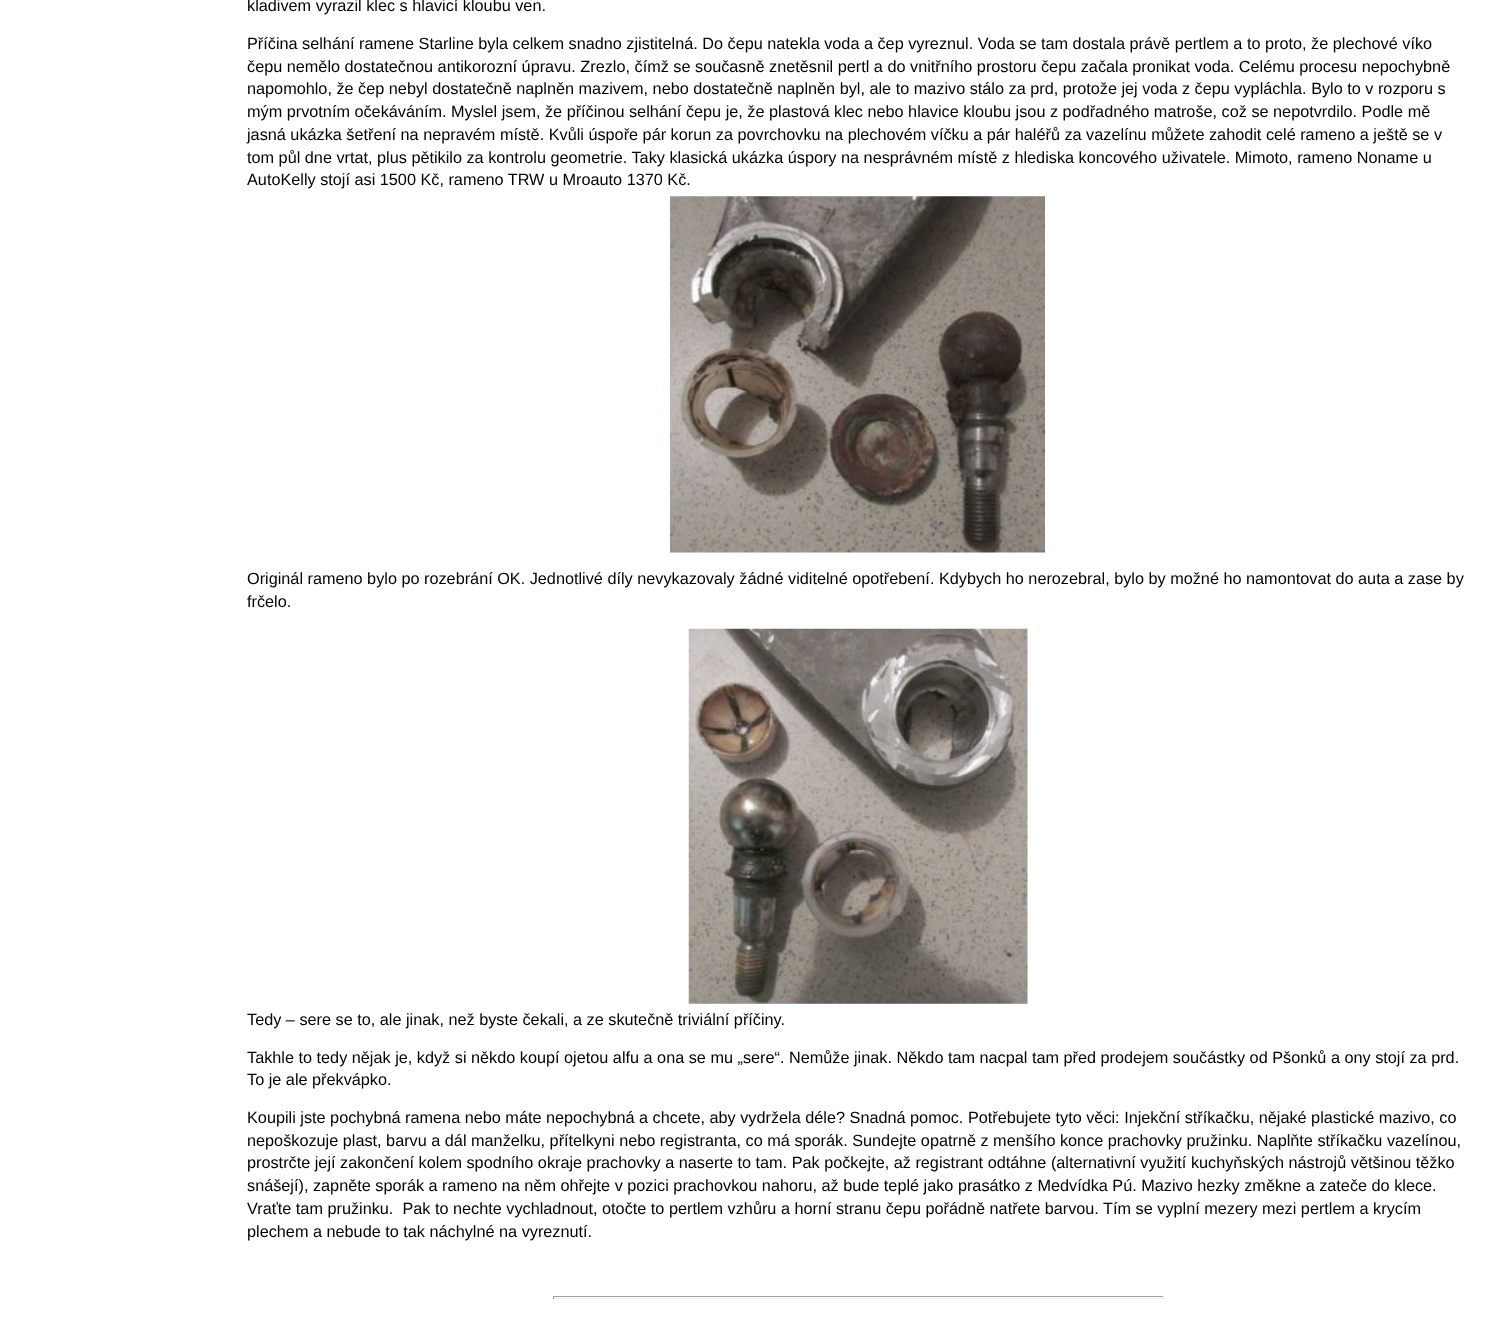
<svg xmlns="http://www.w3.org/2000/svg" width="1493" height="1318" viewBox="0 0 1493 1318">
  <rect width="100%" height="100%" fill="#ffffff"/>
  <text x="247" y="11" font-family="Liberation Sans" font-size="16.25" fill="#000000">kladivem vyrazil klec s hlavicí kloubu ven.</text>
  <text x="247" y="49" font-family="Liberation Sans" font-size="16.25" fill="#000000">Příčina selhání ramene Starline byla celkem snadno zjistitelná. Do čepu natekla voda a čep vyreznul. Voda se tam dostala právě pertlem a to proto, že plechové víko</text>
  <text x="247" y="72" font-family="Liberation Sans" font-size="16.25" fill="#000000">čepu nemělo dostatečnou antikorozní úpravu. Zrezlo, čímž se současně znetěsnil pertl a do vnitřního prostoru čepu začala pronikat voda. Celému procesu nepochybně</text>
  <text x="247" y="94" font-family="Liberation Sans" font-size="16.25" fill="#000000">napomohlo, že čep nebyl dostatečně naplněn mazivem, nebo dostatečně naplněn byl, ale to mazivo stálo za prd, protože jej voda z čepu vypláchla. Bylo to v rozporu s</text>
  <text x="247" y="117" font-family="Liberation Sans" font-size="16.25" fill="#000000">mým prvotním očekáváním. Myslel jsem, že příčinou selhání čepu je, že plastová klec nebo hlavice kloubu jsou z podřadného matroše, což se nepotvrdilo. Podle mě</text>
  <text x="247" y="140" font-family="Liberation Sans" font-size="16.25" fill="#000000">jasná ukázka šetření na nepravém místě. Kvůli úspoře pár korun za povrchovku na plechovém víčku a pár haléřů za vazelínu můžete zahodit celé rameno a ještě se v</text>
  <text x="247" y="163" font-family="Liberation Sans" font-size="16.25" fill="#000000">tom půl dne vrtat, plus pětikilo za kontrolu geometrie. Taky klasická ukázka úspory na nesprávném místě z hlediska koncového uživatele. Mimoto, rameno Noname u</text>
  <text x="247" y="185" font-family="Liberation Sans" font-size="16.25" fill="#000000">AutoKelly stojí asi 1500 Kč, rameno TRW u Mroauto 1370 Kč.</text>
  <image x="670" y="196" width="375" height="357" href="img1.png"/>
  <text x="247" y="584" font-family="Liberation Sans" font-size="16.25" fill="#000000">Originál rameno bylo po rozebrání OK. Jednotlivé díly nevykazovaly žádné viditelné opotřebení. Kdybych ho nerozebral, bylo by možné ho namontovat do auta a zase by</text>
  <text x="247" y="607" font-family="Liberation Sans" font-size="16.25" fill="#000000">frčelo.</text>
  <image x="688" y="628" width="340" height="376" href="img2.png"/>
  <text x="247" y="1025" font-family="Liberation Sans" font-size="16.25" fill="#000000">Tedy – sere se to, ale jinak, než byste čekali, a ze skutečně triviální příčiny.</text>
  <text x="247" y="1063" font-family="Liberation Sans" font-size="16.25" fill="#000000">Takhle to tedy nějak je, když si někdo koupí ojetou alfu a ona se mu „sere“. Nemůže jinak. Někdo tam nacpal tam před prodejem součástky od Pšonků a ony stojí za prd.</text>
  <text x="247" y="1085" font-family="Liberation Sans" font-size="16.25" fill="#000000">To je ale překvápko.</text>
  <text x="247" y="1123" font-family="Liberation Sans" font-size="16.25" fill="#000000">Koupili jste pochybná ramena nebo máte nepochybná a chcete, aby vydržela déle? Snadná pomoc. Potřebujete tyto věci: Injekční stříkačku, nějaké plastické mazivo, co</text>
  <text x="247" y="1146" font-family="Liberation Sans" font-size="16.25" fill="#000000">nepoškozuje plast, barvu a dál manželku, přítelkyni nebo registranta, co má sporák. Sundejte opatrně z menšího konce prachovky pružinku. Naplňte stříkačku vazelínou,</text>
  <text x="247" y="1168" font-family="Liberation Sans" font-size="16.25" fill="#000000">prostrčte její zakončení kolem spodního okraje prachovky a naserte to tam. Pak počkejte, až registrant odtáhne (alternativní využití kuchyňských nástrojů většinou těžko</text>
  <text x="247" y="1191" font-family="Liberation Sans" font-size="16.25" fill="#000000">snášejí), zapněte sporák a rameno na něm ohřejte v pozici prachovkou nahoru, až bude teplé jako prasátko z Medvídka Pú. Mazivo hezky změkne a zateče do klece.</text>
  <text x="247" y="1214" font-family="Liberation Sans" font-size="16.25" fill="#000000" xml:space="preserve">Vraťte tam pružinku.  Pak to nechte vychladnout, otočte to pertlem vzhůru a horní stranu čepu pořádně natřete barvou. Tím se vyplní mezery mezi pertlem a krycím</text>
  <text x="247" y="1237" font-family="Liberation Sans" font-size="16.25" fill="#000000">plechem a nebude to tak náchylné na vyreznutí.</text>
  <rect x="553" y="1296" width="611" height="1" fill="#9f9f9f"/>
  <rect x="1163" y="1296" width="1" height="3" fill="#eeeeee"/>
  <rect x="553" y="1298" width="611" height="1" fill="#eeeeee"/>
  <rect x="553" y="1296" width="1" height="3" fill="#9f9f9f"/>
</svg>
